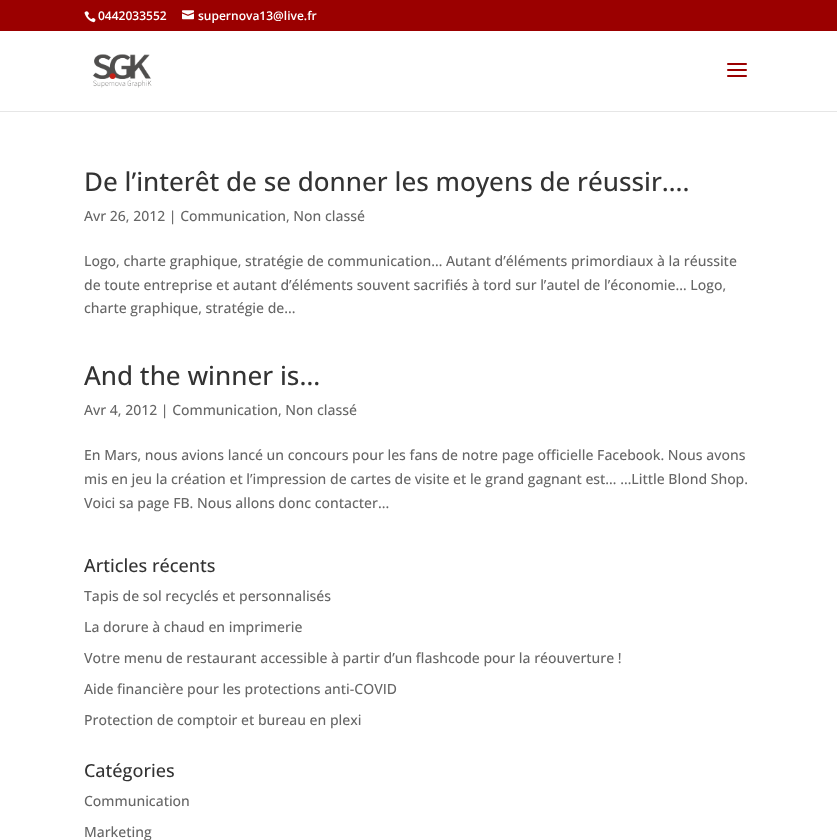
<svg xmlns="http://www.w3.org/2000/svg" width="837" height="840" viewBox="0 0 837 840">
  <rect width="100%" height="100%" fill="#ffffff"/>
  <rect x="0" y="0" width="837" height="31" fill="#9b0000"/>
  <image x="84" y="11" width="12" height="12" href="img1.png"/>
  <text x="98" y="20" font-family="Open Sans" font-size="12" font-weight="600" fill="#ffffff">0442033552</text>
  <image x="182" y="10" width="12" height="10" href="img2.png"/>
  <text x="198" y="20" font-family="Open Sans" font-size="12" font-weight="600" fill="#ffffff">supernova13@live.fr</text>
  <rect x="0" y="111" width="837" height="1" fill="#e6e6e6"/>
  <image x="92" y="54" width="60" height="34" href="img3.png"/>
  <image x="727" y="63" width="20" height="14" href="img4.png"/>
  <text x="84" y="191" font-family="Open Sans" font-size="26" font-weight="500" fill="#333333">De l’interêt de se donner les moyens de réussir….</text>
  <text x="84" y="221" font-family="Open Sans" font-size="14" font-weight="500" fill="#666666">Avr 26, 2012 | Communication, Non classé</text>
  <text x="84" y="266" font-family="Open Sans" font-size="14" font-weight="500" fill="#666666">Logo, charte graphique, stratégie de communication… Autant d’éléments primordiaux à la réussite</text>
  <text x="84" y="290" font-family="Open Sans" font-size="14" font-weight="500" fill="#666666">de toute entreprise et autant d’éléments souvent sacrifiés à tord sur l’autel de l’économie… Logo,</text>
  <text x="84" y="313" font-family="Open Sans" font-size="14" font-weight="500" fill="#666666">charte graphique, stratégie de...</text>
  <text x="84" y="385" font-family="Open Sans" font-size="26" font-weight="500" fill="#333333">And the winner is…</text>
  <text x="84" y="415" font-family="Open Sans" font-size="14" font-weight="500" fill="#666666">Avr 4, 2012 | Communication, Non classé</text>
  <text x="84" y="460" font-family="Open Sans" font-size="14" font-weight="500" fill="#666666">En Mars, nous avions lancé un concours pour les fans de notre page officielle Facebook. Nous avons</text>
  <text x="84" y="484" font-family="Open Sans" font-size="14" font-weight="500" fill="#666666">mis en jeu la création et l’impression de cartes de visite et le grand gagnant est… …Little Blond Shop.</text>
  <text x="84" y="508" font-family="Open Sans" font-size="14" font-weight="500" fill="#666666">Voici sa page FB. Nous allons donc contacter...</text>
  <text x="84" y="572" font-family="Open Sans" font-size="18" font-weight="500" fill="#333333">Articles récents</text>
  <text x="84" y="601" font-family="Open Sans" font-size="14" font-weight="500" fill="#666666">Tapis de sol recyclés et personnalisés</text>
  <text x="84" y="632" font-family="Open Sans" font-size="14" font-weight="500" fill="#666666">La dorure à chaud en imprimerie</text>
  <text x="84" y="663" font-family="Open Sans" font-size="14" font-weight="500" fill="#666666">Votre menu de restaurant accessible à partir d’un flashcode pour la réouverture !</text>
  <text x="84" y="694" font-family="Open Sans" font-size="14" font-weight="500" fill="#666666">Aide financière pour les protections anti-COVID</text>
  <text x="84" y="725" font-family="Open Sans" font-size="14" font-weight="500" fill="#666666">Protection de comptoir et bureau en plexi</text>
  <text x="84" y="777" font-family="Open Sans" font-size="18" font-weight="500" fill="#333333">Catégories</text>
  <text x="84" y="806" font-family="Open Sans" font-size="14" font-weight="500" fill="#666666">Communication</text>
  <text x="84" y="837" font-family="Open Sans" font-size="14" font-weight="500" fill="#666666">Marketing</text>
</svg>
